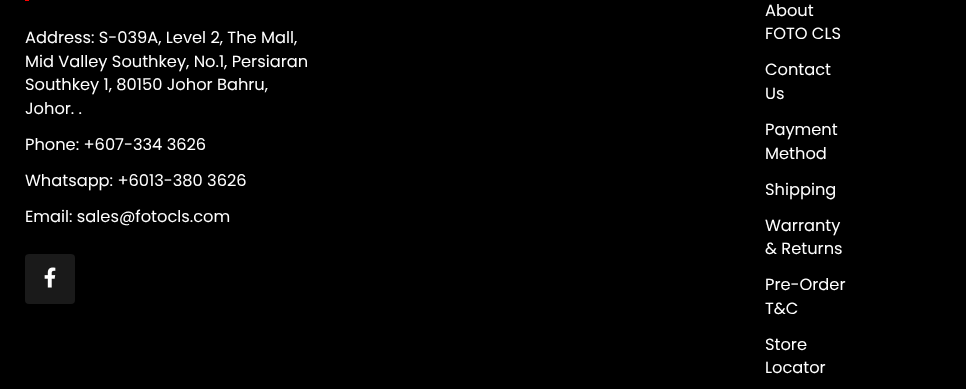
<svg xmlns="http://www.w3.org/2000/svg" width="966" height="389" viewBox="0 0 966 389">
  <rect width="100%" height="100%" fill="#000000"/>
  <rect x="25" y="0" width="4" height="1" fill="#ff0000"/>
  <text x="25" y="43" font-family="Poppins" font-size="16.25" fill="#ffffff">Address: S-039A, Level 2, The Mall,</text>
  <text x="25" y="67" font-family="Poppins" font-size="16.25" fill="#ffffff">Mid Valley Southkey, No.1, Persiaran</text>
  <text x="25" y="90" font-family="Poppins" font-size="16.25" fill="#ffffff">Southkey 1, 80150 Johor Bahru,</text>
  <text x="25" y="114" font-family="Poppins" font-size="16.25" fill="#ffffff">Johor. .</text>
  <text x="25" y="150" font-family="Poppins" font-size="16.25" fill="#ffffff">Phone: +607-334 3626</text>
  <text x="25" y="186" font-family="Poppins" font-size="16.25" fill="#ffffff">Whatsapp: +6013-380 3626</text>
  <text x="25" y="222" font-family="Poppins" font-size="16.25" fill="#ffffff">Email: sales@fotocls.com</text>
  <image x="44" y="267" width="12" height="21" href="img1.png"/>
  <rect x="25" y="254" width="50" height="50" rx="4" fill="#ffffff" fill-opacity="0.1"/>
  <text x="765" y="16" font-family="Poppins" font-size="16.25" fill="#ffffff">About</text>
  <text x="765" y="39" font-family="Poppins" font-size="16.25" fill="#ffffff">FOTO CLS</text>
  <text x="765" y="75" font-family="Poppins" font-size="16.25" fill="#ffffff">Contact</text>
  <text x="765" y="99" font-family="Poppins" font-size="16.25" fill="#ffffff">Us</text>
  <text x="765" y="135" font-family="Poppins" font-size="16.25" fill="#ffffff">Payment</text>
  <text x="765" y="159" font-family="Poppins" font-size="16.25" fill="#ffffff">Method</text>
  <text x="765" y="195" font-family="Poppins" font-size="16.25" fill="#ffffff">Shipping</text>
  <text x="765" y="231" font-family="Poppins" font-size="16.25" fill="#ffffff">Warranty</text>
  <text x="765" y="254" font-family="Poppins" font-size="16.25" fill="#ffffff">&amp; Returns</text>
  <text x="765" y="290" font-family="Poppins" font-size="16.25" fill="#ffffff">Pre-Order</text>
  <text x="765" y="314" font-family="Poppins" font-size="16.25" fill="#ffffff">T&amp;C</text>
  <text x="765" y="350" font-family="Poppins" font-size="16.25" fill="#ffffff">Store</text>
  <text x="765" y="373" font-family="Poppins" font-size="16.25" fill="#ffffff">Locator</text>
</svg>
